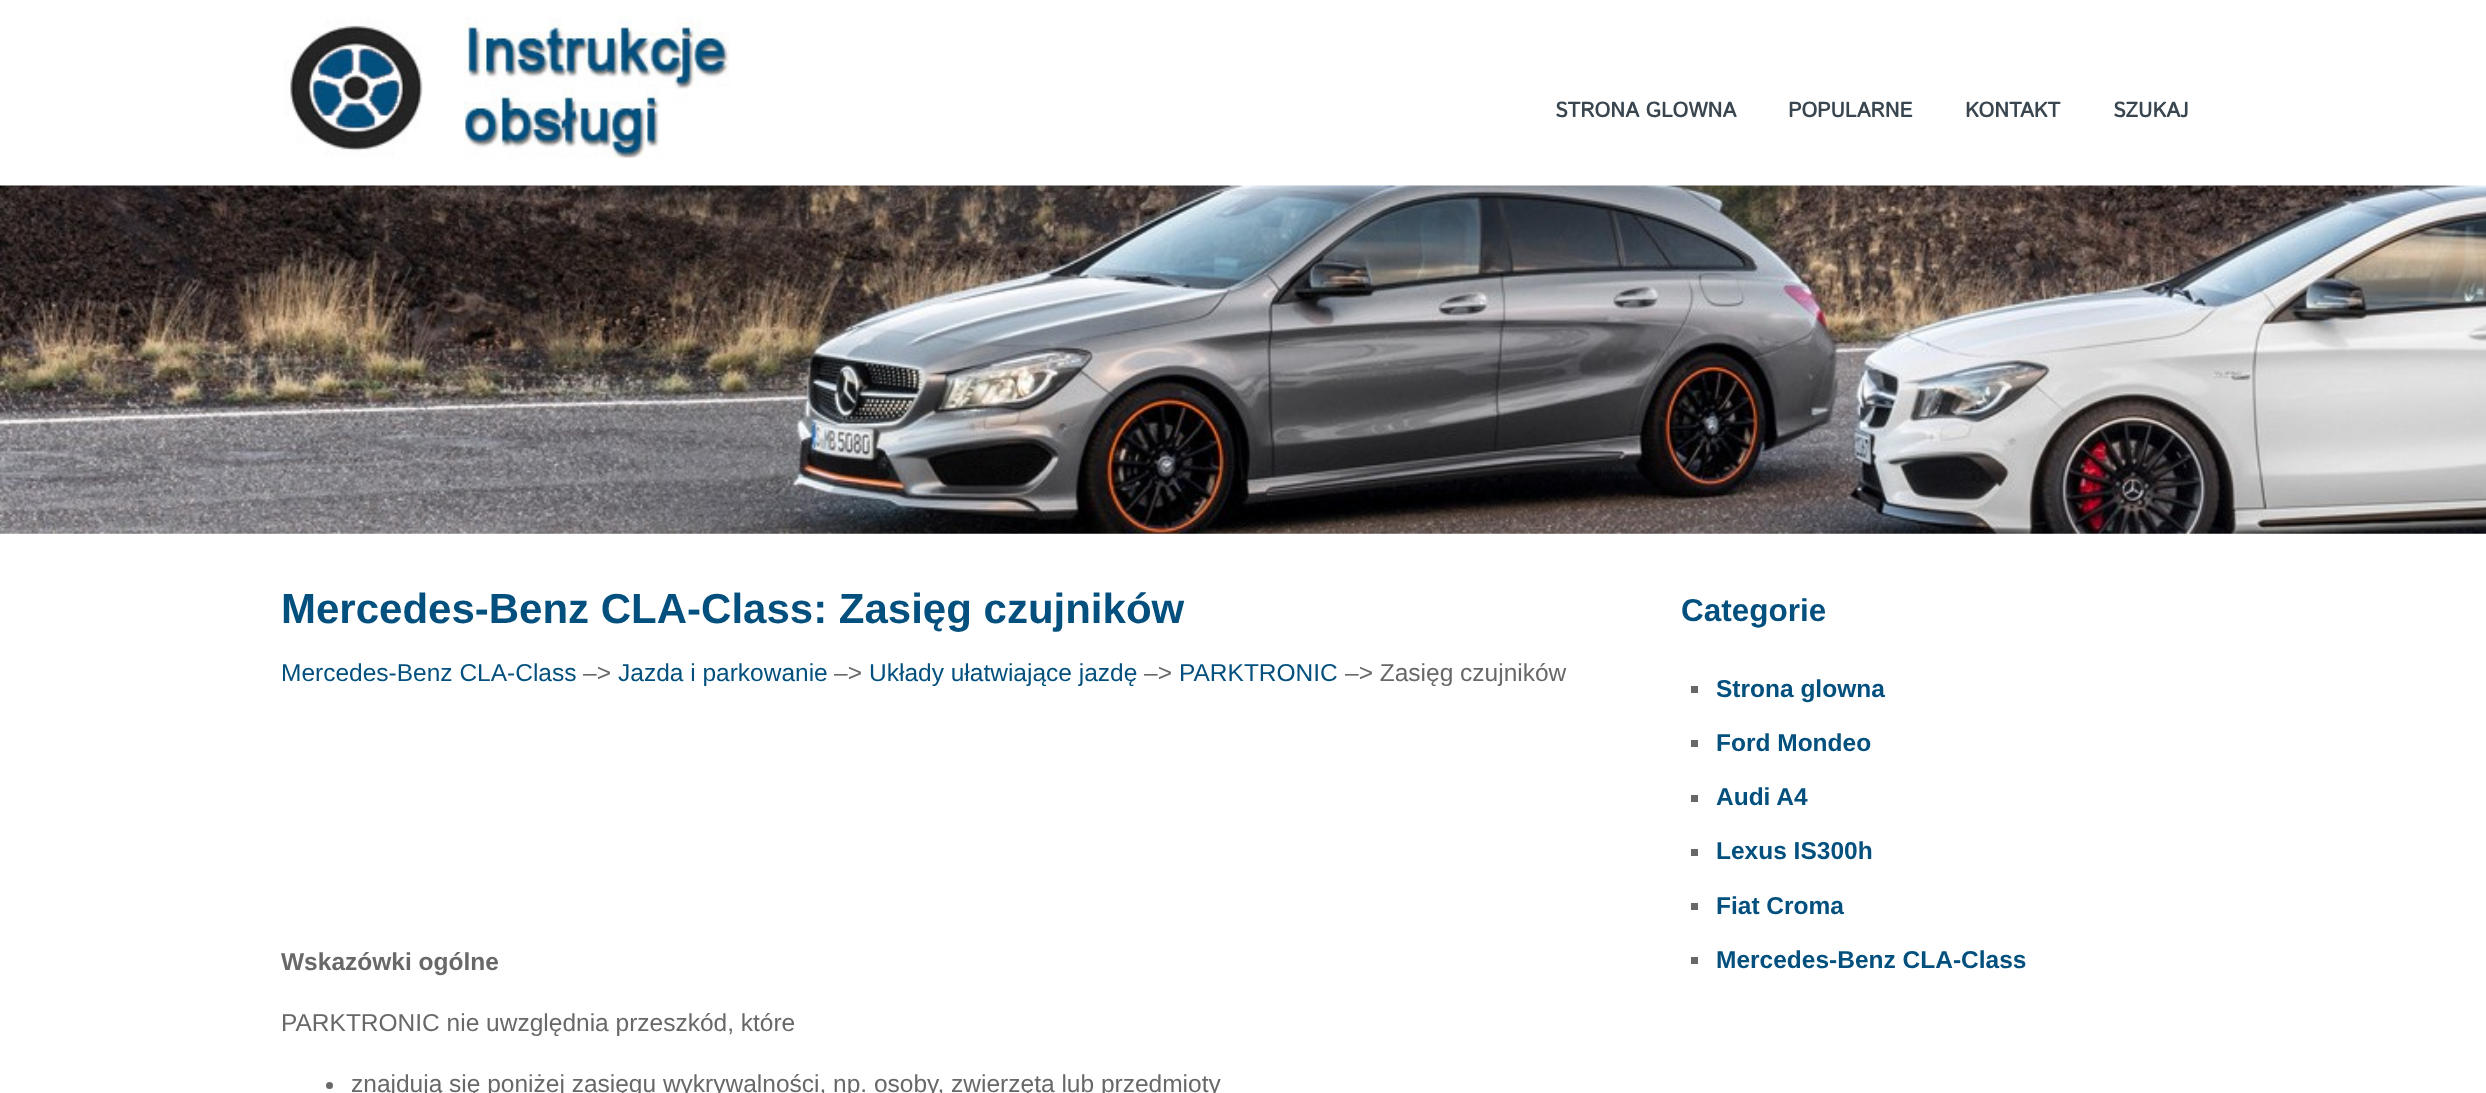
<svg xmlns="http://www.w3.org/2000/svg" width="2486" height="1093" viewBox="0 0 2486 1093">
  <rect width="100%" height="100%" fill="#ffffff"/>
  <image x="284" y="17" width="446" height="141" href="img1.png"/>
  <text x="1555" y="117" font-family="Istok Web" font-size="21" font-weight="bold" fill="#39464f">STRONA GLOWNA</text>
  <text x="1788" y="117" font-family="Istok Web" font-size="21" font-weight="bold" fill="#39464f">POPULARNE</text>
  <text x="1965" y="117" font-family="Istok Web" font-size="21" font-weight="bold" fill="#39464f">KONTAKT</text>
  <text x="2113" y="117" font-family="Istok Web" font-size="21" font-weight="bold" fill="#39464f">SZUKAJ</text>
  <image x="0" y="185" width="2486" height="349" href="img2.png"/>
  <text x="281" y="623" font-family="Liberation Sans" font-size="42" font-weight="bold" fill="#03507e">Mercedes-Benz CLA-Class: Zasięg czujników</text>
  <text x="281" y="681" font-family="Liberation Sans" font-size="24.5" fill="#03507e">Mercedes-Benz CLA-Class</text>
  <text x="583" y="681" font-family="Liberation Sans" font-size="24.5" fill="#686868">–&gt;</text>
  <text x="618" y="681" font-family="Liberation Sans" font-size="24.5" fill="#03507e">Jazda i parkowanie</text>
  <text x="834" y="681" font-family="Liberation Sans" font-size="24.5" fill="#686868">–&gt;</text>
  <text x="869" y="681" font-family="Liberation Sans" font-size="24.5" fill="#03507e">Układy ułatwiające jazdę</text>
  <text x="1144" y="681" font-family="Liberation Sans" font-size="24.5" fill="#686868">–&gt;</text>
  <text x="1179" y="681" font-family="Liberation Sans" font-size="24.5" fill="#03507e">PARKTRONIC</text>
  <text x="1345" y="681" font-family="Liberation Sans" font-size="24.5" fill="#686868">–&gt; Zasięg czujników</text>
  <text x="281" y="970" font-family="Liberation Sans" font-size="24.5" font-weight="bold" fill="#686868">Wskazówki ogólne</text>
  <text x="281" y="1031" font-family="Liberation Sans" font-size="24.5" fill="#686868">PARKTRONIC nie uwzględnia przeszkód, które</text>
  <circle cx="329.5" cy="1085.5" r="3.5" fill="#686868"/>
  <text x="351" y="1092" font-family="Liberation Sans" font-size="24.5" fill="#686868">znajdują się poniżej zasięgu wykrywalności, np. osoby, zwierzęta lub przedmioty</text>
  <text x="1681" y="621" font-family="Liberation Sans" font-size="31.5" font-weight="bold" fill="#03507e">Categorie</text>
  <rect x="1691" y="686" width="7" height="7" fill="#686868"/>
  <text x="1716" y="697" font-family="Liberation Sans" font-size="24.5" font-weight="bold" fill="#03507e">Strona glowna</text>
  <rect x="1691" y="740" width="7" height="7" fill="#686868"/>
  <text x="1716" y="751" font-family="Liberation Sans" font-size="24.5" font-weight="bold" fill="#03507e">Ford Mondeo</text>
  <rect x="1691" y="795" width="7" height="7" fill="#686868"/>
  <text x="1716" y="805" font-family="Liberation Sans" font-size="24.5" font-weight="bold" fill="#03507e">Audi A4</text>
  <rect x="1691" y="849" width="7" height="7" fill="#686868"/>
  <text x="1716" y="859" font-family="Liberation Sans" font-size="24.5" font-weight="bold" fill="#03507e">Lexus IS300h</text>
  <rect x="1691" y="903" width="7" height="7" fill="#686868"/>
  <text x="1716" y="914" font-family="Liberation Sans" font-size="24.5" font-weight="bold" fill="#03507e">Fiat Croma</text>
  <rect x="1691" y="957" width="7" height="7" fill="#686868"/>
  <text x="1716" y="968" font-family="Liberation Sans" font-size="24.5" font-weight="bold" fill="#03507e">Mercedes-Benz CLA-Class</text>
</svg>
